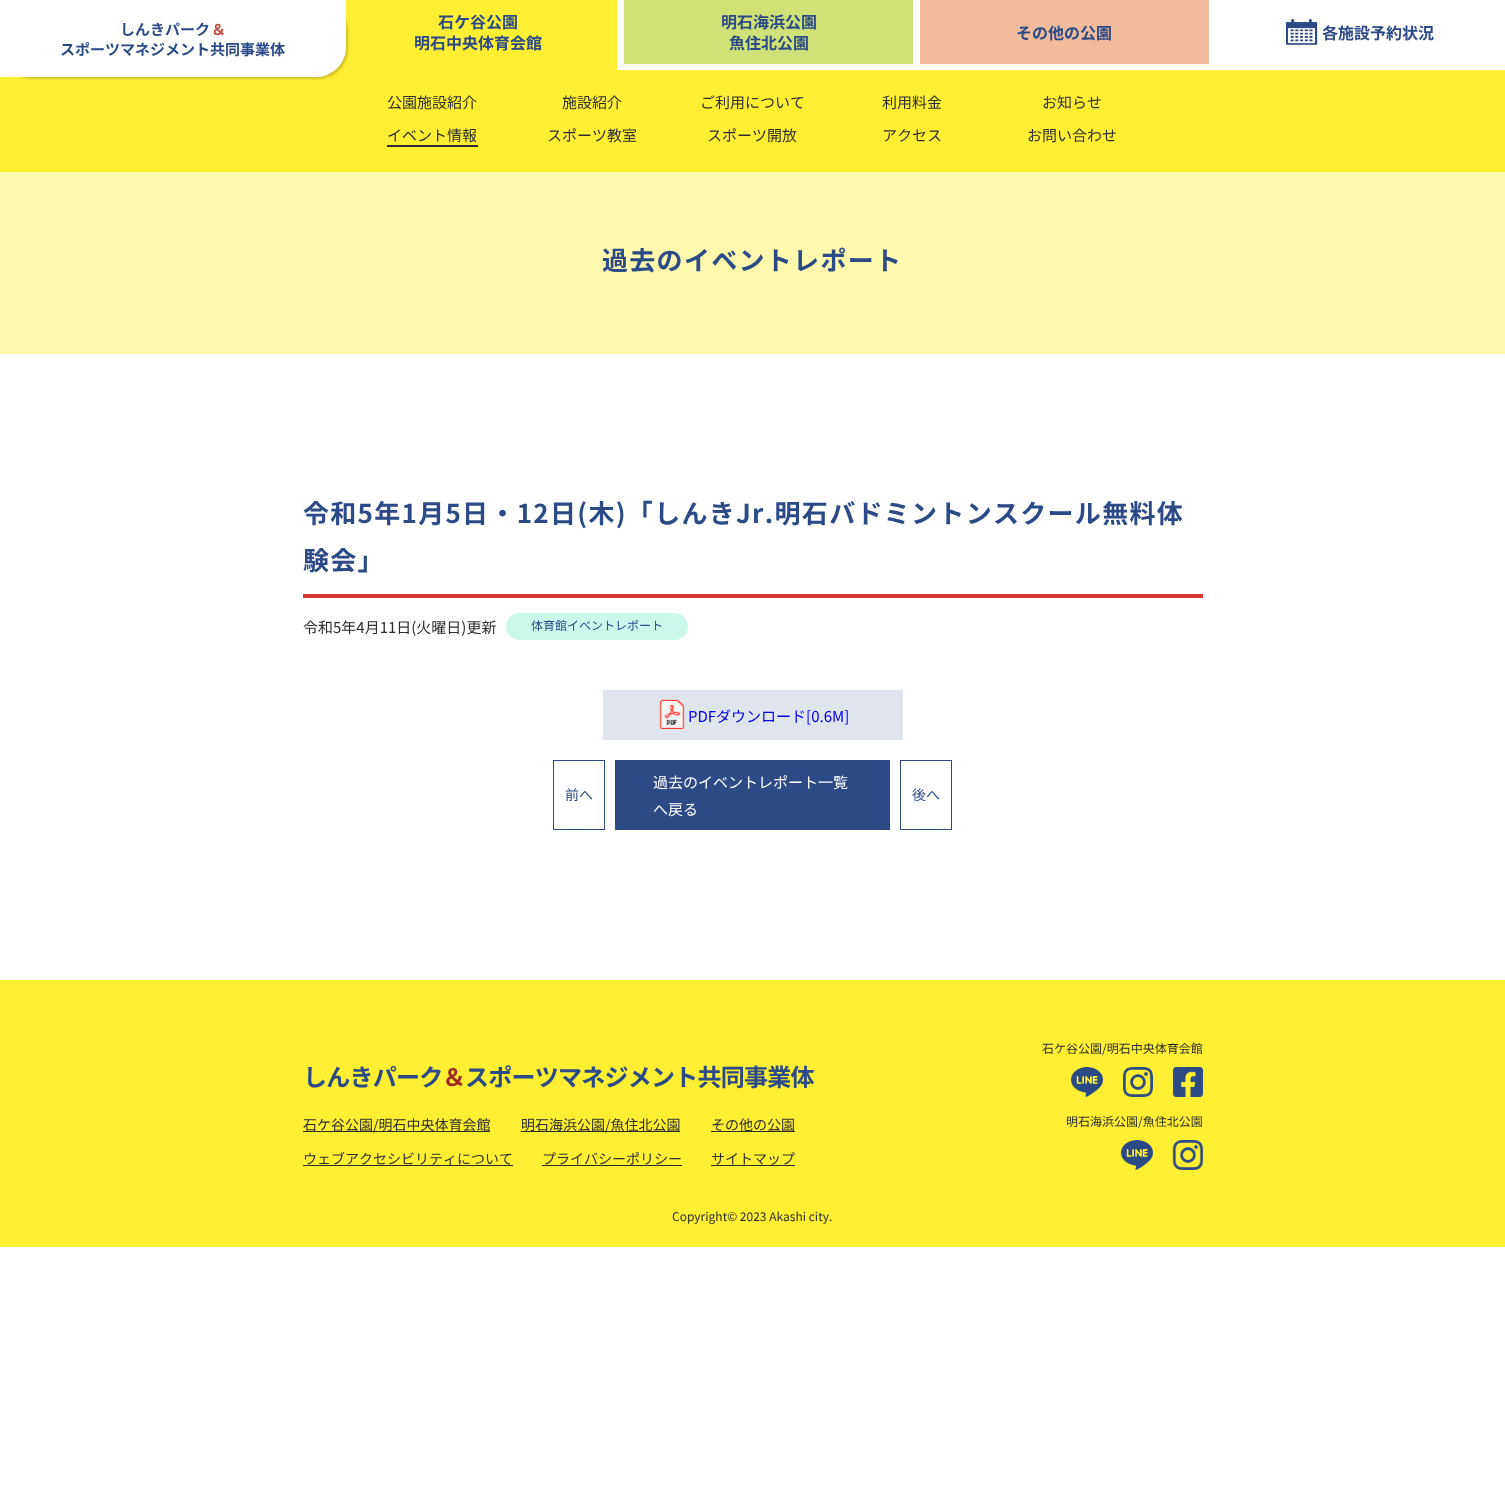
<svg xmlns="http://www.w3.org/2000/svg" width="1505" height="1486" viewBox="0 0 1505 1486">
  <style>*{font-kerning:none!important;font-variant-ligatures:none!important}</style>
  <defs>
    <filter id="blur1" x="-50%" y="-200%" width="200%" height="500%"><feGaussianBlur stdDeviation="1"/></filter>
  </defs>
  <rect width="100%" height="100%" fill="#ffffff"/>
  <rect x="332" y="0" width="285" height="70" fill="#ffef33"/>
  <rect x="0" y="70" width="1505" height="102" fill="#ffef33"/>
  <rect x="2" y="2" width="346" height="77" rx="30" fill="#221713" fill-opacity="0.2" filter="url(#blur1)"/>
  <path d="M0 0H346V47C346 63.5 332.5 77 316 77H0Z" fill="#ffffff"/>
  <text x="120" y="35" font-family="Noto Sans JP" font-size="15" font-weight="bold" fill="#2b4a86">しんきパーク</text>
  <text x="211" y="35" font-family="Noto Sans JP" font-size="15" font-weight="bold" fill="#c44539">＆</text>
  <text x="60" y="55" font-family="Noto Sans JP" font-size="15" font-weight="bold" fill="#2b4a86">スポーツマネジメント共同事業体</text>
  <text x="438" y="28" font-family="Noto Sans JP" font-size="16" font-weight="bold" fill="#2b4a86">石ケ谷公園</text>
  <text x="414" y="49" font-family="Noto Sans JP" font-size="16" font-weight="bold" fill="#2b4a86">明石中央体育会館</text>
  <text x="387" y="108" font-family="Noto Sans JP" font-size="15" fill="#2e2e2e">公園施設紹介</text>
  <text x="562" y="108" font-family="Noto Sans JP" font-size="15" fill="#2e2e2e">施設紹介</text>
  <text x="700" y="108" font-family="Noto Sans JP" font-size="15" fill="#2e2e2e">ご利用について</text>
  <text x="882" y="108" font-family="Noto Sans JP" font-size="15" fill="#2e2e2e">利用料金</text>
  <text x="1042" y="108" font-family="Noto Sans JP" font-size="15" fill="#2e2e2e">お知らせ</text>
  <text x="387" y="141" font-family="Noto Sans JP" font-size="15" fill="#2e2e2e">イベント情報</text>
  <rect x="387" y="145" width="91" height="2" fill="#2e2e2e"/>
  <text x="547" y="141" font-family="Noto Sans JP" font-size="15" fill="#2e2e2e">スポーツ教室</text>
  <text x="707" y="141" font-family="Noto Sans JP" font-size="15" fill="#2e2e2e">スポーツ開放</text>
  <text x="882" y="141" font-family="Noto Sans JP" font-size="15" fill="#2e2e2e">アクセス</text>
  <text x="1027" y="141" font-family="Noto Sans JP" font-size="15" fill="#2e2e2e">お問い合わせ</text>
  <rect x="624" y="0" width="289" height="64" fill="#d0e277"/>
  <text x="721" y="28" font-family="Noto Sans JP" font-size="16" font-weight="bold" fill="#2b4a86">明石海浜公園</text>
  <text x="729" y="49" font-family="Noto Sans JP" font-size="16" font-weight="bold" fill="#2b4a86">魚住北公園</text>
  <rect x="920" y="0" width="289" height="64" fill="#f0bc9d"/>
  <text x="1016" y="39" font-family="Noto Sans JP" font-size="16" font-weight="bold" fill="#2b4a86">その他の公園</text>
  <image x="1286" y="18" width="32" height="27" href="img1.png"/>
  <text x="1322" y="39" font-family="Noto Sans JP" font-size="16" font-weight="bold" fill="#2b4a86">各施設予約状況</text>
  <rect x="0" y="172" width="1505" height="182" fill="#fff9ae"/>
  <text x="602" y="270" font-family="Noto Sans JP" font-size="26" font-weight="bold" letter-spacing="1.3" fill="#2b4a86">過去のイベントレポート</text>
  <rect x="303" y="594" width="900" height="4" fill="#d93830"/>
  <text x="303" y="523" font-family="Noto Sans JP" font-size="26" font-weight="bold" letter-spacing="1.3" fill="#2b4a86">令和5年1月5日・12日(木)「しんきJr.明石バドミントンスクール無料体</text>
  <text x="303" y="570" font-family="Noto Sans JP" font-size="26" font-weight="bold" letter-spacing="1.3" fill="#2b4a86">験会」</text>
  <text x="303" y="633" font-family="Noto Sans JP" font-size="15" fill="#2e2e2e">令和5年4月11日(火曜日)更新</text>
  <rect x="506" y="613" width="182" height="27" rx="13.5" fill="#ccf8eb"/>
  <text x="531" y="630" font-family="Noto Sans JP" font-size="12" fill="#2b4a86">体育館イベントレポート</text>
  <rect x="603" y="690" width="300" height="50" fill="#e0e4ed"/>
  <image x="659" y="699" width="26" height="30" href="img2.png"/>
  <text x="688" y="722" font-family="Noto Sans JP" font-size="15" fill="#0000ee">PDFダウンロード[0.6M]</text>
  <rect x="553.5" y="760.5" width="51" height="69" fill="none" stroke="#2b4a86"/>
  <text x="565" y="800" font-family="Noto Sans JP" font-size="14" fill="#2b4a86">前へ</text>
  <rect x="615" y="760" width="275" height="70" fill="#2b4a86"/>
  <text x="653" y="788" font-family="Noto Sans JP" font-size="15" fill="#ffffff">過去のイベントレポート一覧</text>
  <text x="653" y="815" font-family="Noto Sans JP" font-size="15" fill="#ffffff">へ戻る</text>
  <rect x="900.5" y="760.5" width="51" height="69" fill="none" stroke="#2b4a86"/>
  <text x="912" y="800" font-family="Noto Sans JP" font-size="14" fill="#2b4a86">後へ</text>
  <rect x="0" y="980" width="1505" height="267" fill="#ffef33"/>
  <text x="303" y="1086" font-family="Noto Sans JP" font-size="24" font-weight="bold" letter-spacing="-0.75" fill="#2b4a86">しんきパーク</text>
  <text x="442" y="1086" font-family="Noto Sans JP" font-size="24" font-weight="bold" letter-spacing="-0.75" fill="#9c2822">＆</text>
  <text x="465" y="1086" font-family="Noto Sans JP" font-size="24" font-weight="bold" letter-spacing="-0.75" fill="#2b4a86">スポーツマネジメント共同事業体</text>
  <rect x="303" y="1131" width="187" height="1" fill="#2e2e2e"/>
  <text x="303" y="1130" font-family="Noto Sans JP" font-size="14" fill="#2e2e2e">石ケ谷公園/明石中央体育会館</text>
  <rect x="521" y="1131" width="159" height="1" fill="#2e2e2e"/>
  <text x="521" y="1130" font-family="Noto Sans JP" font-size="14" fill="#2e2e2e">明石海浜公園/魚住北公園</text>
  <rect x="711" y="1131" width="84" height="1" fill="#2e2e2e"/>
  <text x="711" y="1130" font-family="Noto Sans JP" font-size="14" fill="#2e2e2e">その他の公園</text>
  <rect x="303" y="1165" width="210" height="1" fill="#2e2e2e"/>
  <text x="303" y="1164" font-family="Noto Sans JP" font-size="14" fill="#2e2e2e">ウェブアクセシビリティについて</text>
  <text x="542" y="1164" font-family="Noto Sans JP" font-size="14" fill="#2e2e2e">プライバシーポリシー</text>
  <rect x="542" y="1165" width="140" height="1" fill="#2e2e2e"/>
  <rect x="711" y="1165" width="84" height="1" fill="#2e2e2e"/>
  <text x="711" y="1164" font-family="Noto Sans JP" font-size="14" fill="#2e2e2e">サイトマップ</text>
  <text x="1042" y="1053" font-family="Noto Sans JP" font-size="12" fill="#2e2e2e">石ケ谷公園/明石中央体育会館</text>
  <image x="1071" y="1067" width="32" height="30" href="img3.png"/>
  <image x="1123" y="1067" width="30" height="30" href="img4.png"/>
  <image x="1173" y="1067" width="30" height="30" href="img5.png"/>
  <text x="1066" y="1126" font-family="Noto Sans JP" font-size="12" fill="#2e2e2e">明石海浜公園/魚住北公園</text>
  <image x="1121" y="1140" width="32" height="30" href="img3.png"/>
  <image x="1172" y="1140" width="31" height="30" href="img6.png"/>
  <text x="672" y="1221" font-family="Noto Sans JP" font-size="12" fill="#2e2e2e">Copyright© 2023 Akashi city.</text>
</svg>
